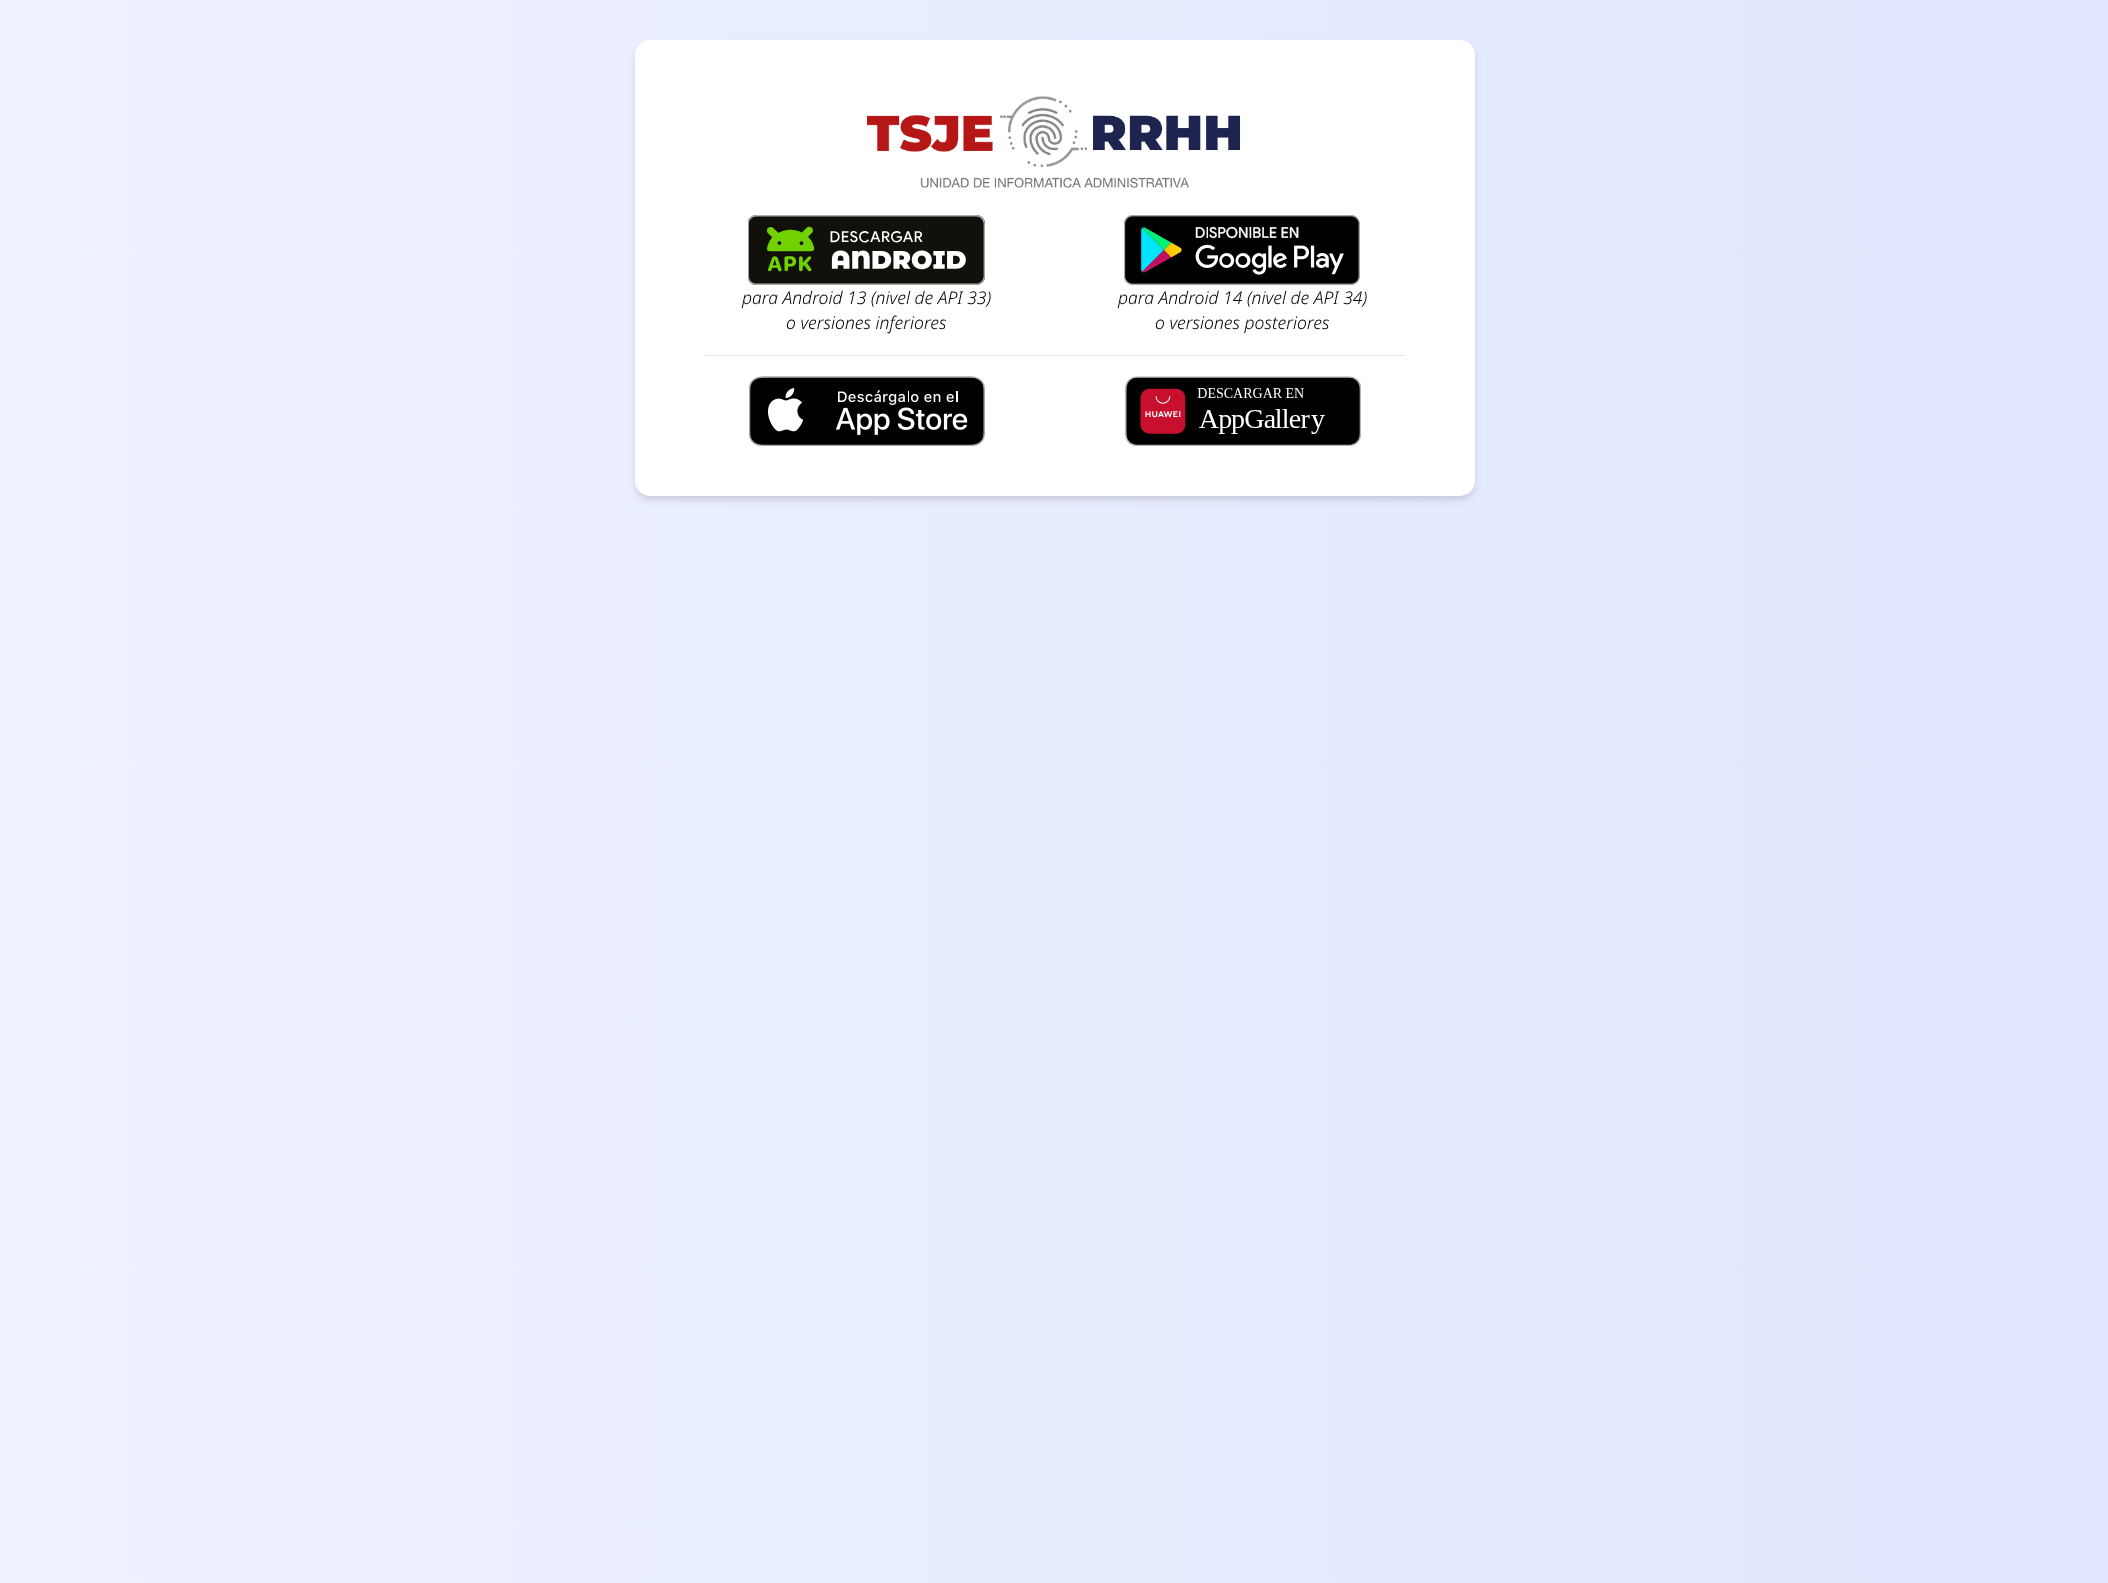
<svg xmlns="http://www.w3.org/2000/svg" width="2108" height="1583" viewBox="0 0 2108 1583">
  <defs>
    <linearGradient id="g1" gradientUnits="userSpaceOnUse" x1="0" y1="792" x2="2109" y2="792"><stop offset="0" stop-color="#eef2ff"/><stop offset="1" stop-color="#e0e7ff"/></linearGradient>
    <filter id="blur1" x="-50%" y="-200%" width="200%" height="500%"><feGaussianBlur stdDeviation="2.5"/></filter>
    <filter id="blur2" x="-50%" y="-200%" width="200%" height="500%"><feGaussianBlur stdDeviation="4"/></filter>
  </defs>
  <rect width="100%" height="100%" fill="#ffffff"/>
  <rect x="0" y="0" width="2108" height="1583" fill="url(#g1)"/>
  <rect x="636" y="44" width="838" height="454" rx="14" fill="#000000" fill-opacity="0.06" filter="url(#blur1)"/>
  <rect x="636" y="46" width="838" height="454" rx="14" fill="#000000" fill-opacity="0.1" filter="url(#blur2)"/>
  <rect x="635" y="40" width="840" height="456" rx="15" fill="#ffffff"/>
  <image x="867" y="96" width="373" height="92" href="img1.png"/>
  <image x="748" y="215" width="237" height="70" href="img2.png"/>
  <text x="742" y="304" font-family="Noto Sans" font-size="17.5" font-weight="300" font-style="italic" fill="#000000">para Android 13 (nivel de API 33)</text>
  <text x="786" y="329" font-family="Noto Sans" font-size="17.5" font-weight="300" font-style="italic" fill="#000000">o versiones inferiores</text>
  <image x="1124" y="215" width="236" height="70" href="img3.png"/>
  <text x="1118" y="304" font-family="Noto Sans" font-size="17.5" font-weight="300" font-style="italic" fill="#000000">para Android 14 (nivel de API 34)</text>
  <text x="1155" y="329" font-family="Noto Sans" font-size="17.5" font-weight="300" font-style="italic" fill="#000000">o versiones posteriores</text>
  <rect x="705" y="355" width="700" height="1" fill="#e5e7eb"/>
  <image x="749" y="376" width="236" height="70" href="img4.png"/>
  <image x="1125" y="376" width="236" height="70" href="img5.png"/>
</svg>
